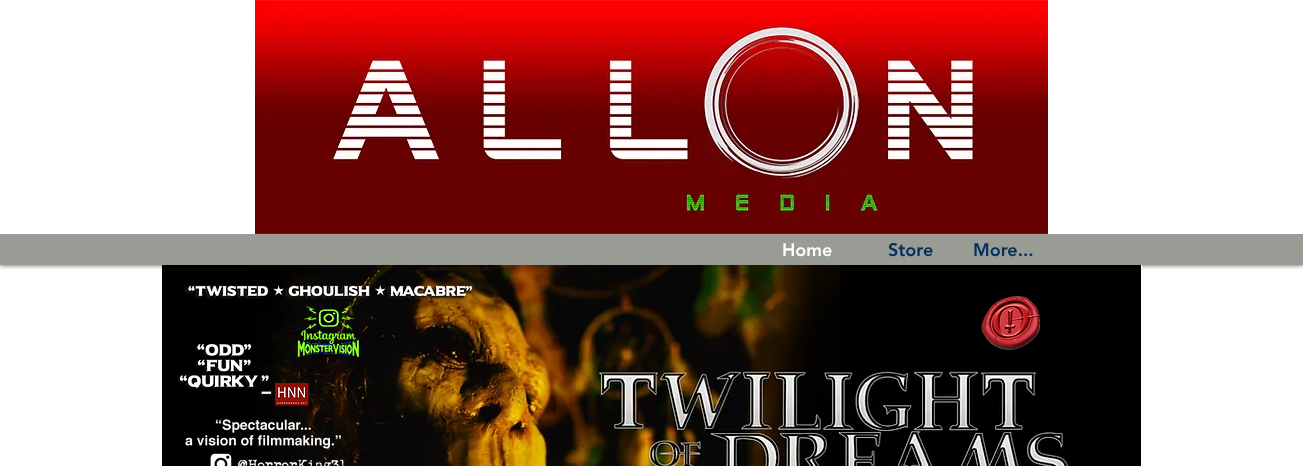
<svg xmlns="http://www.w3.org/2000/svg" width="1303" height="466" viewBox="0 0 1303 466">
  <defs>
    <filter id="blur1" x="-50%" y="-200%" width="200%" height="500%"><feGaussianBlur stdDeviation="2.5"/></filter>
  </defs>
  <rect width="100%" height="100%" fill="#ffffff"/>
  <rect x="0" y="0" width="1303" height="265" fill="#000000" fill-opacity="0.7" filter="url(#blur1)"/>
  <rect x="0" y="234" width="1303" height="31" fill="#989c94"/>
  <rect x="0" y="0" width="1303" height="234" fill="#ffffff"/>
  <image x="255" y="0" width="793" height="234" href="img1.png"/>
  <text x="782" y="256" font-family="'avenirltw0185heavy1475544'" font-size="18" font-weight="900" fill="#ffffff">Home</text>
  <text x="888" y="256" font-family="'avenirltw0185heavy1475544'" font-size="18" font-weight="900" fill="#002e5d">Store</text>
  <text x="973" y="256" font-family="'avenirltw0185heavy1475544'" font-size="18" font-weight="900" fill="#002e5d">More...</text>
  <image x="162" y="265" width="979" height="201" href="img2.png"/>
  <image x="185" y="285" width="288" height="72" href="img3.png"/>
  <image x="981" y="296" width="60" height="54" href="img4.png"/>
  <image x="177" y="343" width="132" height="63" href="img5.png"/>
  <image x="185" y="419" width="161" height="47" href="img6.png"/>
  <rect x="1141" y="265" width="1" height="5" fill="#ffffff"/>
</svg>
